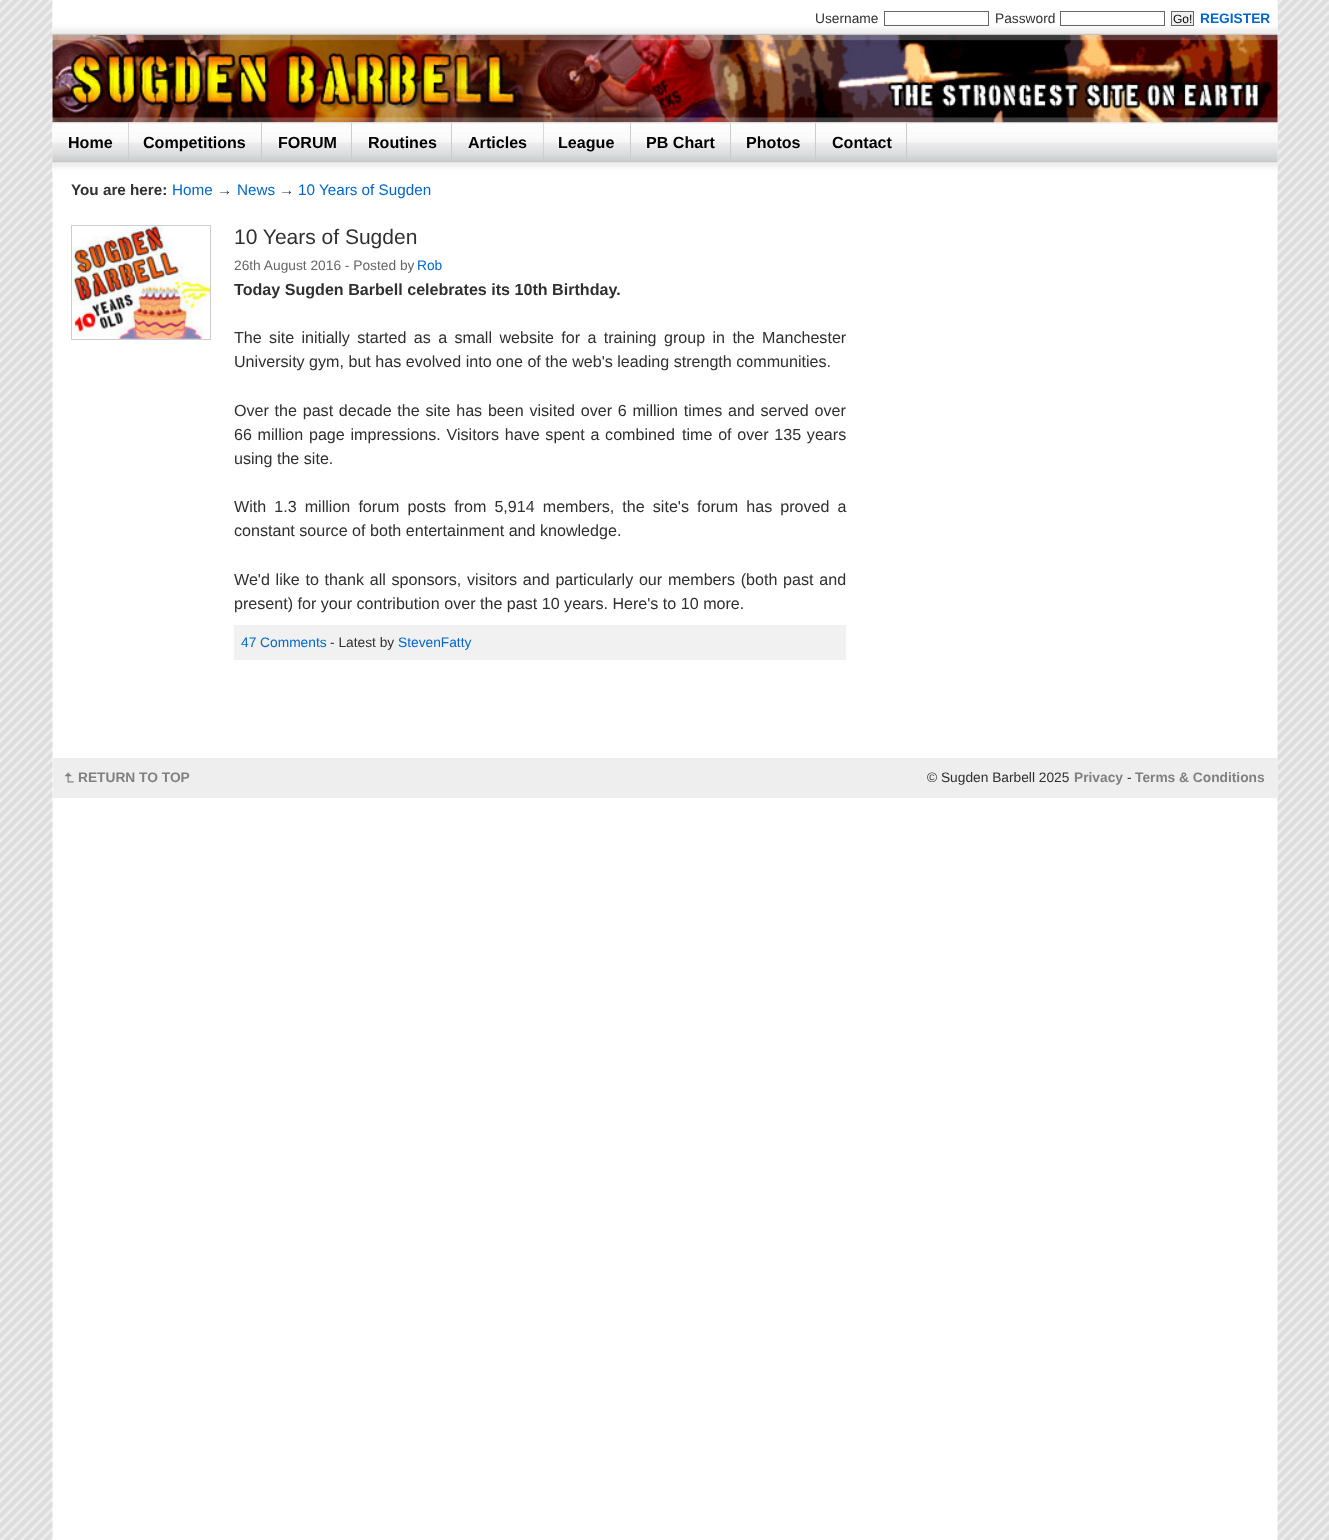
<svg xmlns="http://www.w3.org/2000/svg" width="1329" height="1540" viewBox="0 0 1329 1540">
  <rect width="100%" height="100%" fill="#ffffff"/>
  <image x="0" y="0" width="1329" height="1540" href="img1.png"/>
  <image x="52" y="4" width="1226" height="31" href="img2.png"/>
  <text x="815" y="23" font-family="Liberation Sans" font-size="13.75" fill="#303030">Username</text>
  <rect x="884.5" y="11.5" width="104" height="14" fill="none" stroke="#666666"/>
  <text x="995" y="23" font-family="Liberation Sans" font-size="13.75" fill="#303030">Password</text>
  <rect x="1060.5" y="11.5" width="104" height="14" fill="none" stroke="#666666"/>
  <rect x="1171.5" y="11.5" width="22" height="14" fill="#efefef" stroke="#666666"/>
  <text x="1173" y="23" font-family="Liberation Sans" font-size="12" fill="#000000">Go!</text>
  <text x="1200" y="23" font-family="Liberation Sans" font-size="13.75" font-weight="bold" fill="#0066cc">REGISTER</text>
  <image x="52" y="35" width="1226" height="88" href="img3.png"/>
  <rect x="53" y="123" width="1225" height="40" fill="#eeeeee"/>
  <image x="52" y="122" width="1226" height="41" href="img4.png"/>
  <image x="52" y="122" width="77" height="39" href="img5.png"/>
  <rect x="128" y="123" width="1" height="38" fill="#cccccc"/>
  <text x="68" y="148" font-family="Liberation Sans" font-size="16.1" font-weight="bold" fill="#000000">Home</text>
  <image x="128" y="122" width="135" height="32" href="img6.png"/>
  <rect x="261" y="123" width="1" height="38" fill="#cccccc"/>
  <text x="143" y="148" font-family="Liberation Sans" font-size="16.1" font-weight="bold" fill="#000000">Competitions</text>
  <image x="262" y="122" width="91" height="1" href="img7.png"/>
  <rect x="351" y="123" width="1" height="38" fill="#cccccc"/>
  <text x="278" y="148" font-family="Liberation Sans" font-size="16.1" font-weight="bold" fill="#000000">FORUM</text>
  <image x="352" y="122" width="101" height="1" href="img8.png"/>
  <rect x="451" y="123" width="1" height="38" fill="#cccccc"/>
  <text x="368" y="148" font-family="Liberation Sans" font-size="16.1" font-weight="bold" fill="#000000">Routines</text>
  <image x="452" y="122" width="92" height="1" href="img9.png"/>
  <rect x="543" y="123" width="1" height="38" fill="#cccccc"/>
  <text x="468" y="148" font-family="Liberation Sans" font-size="16.1" font-weight="bold" fill="#000000">Articles</text>
  <image x="543" y="122" width="89" height="32" href="img10.png"/>
  <rect x="630" y="123" width="1" height="38" fill="#cccccc"/>
  <text x="558" y="148" font-family="Liberation Sans" font-size="16.1" font-weight="bold" fill="#000000">League</text>
  <image x="631" y="122" width="100" height="1" href="img11.png"/>
  <rect x="730" y="123" width="1" height="38" fill="#cccccc"/>
  <text x="646" y="148" font-family="Liberation Sans" font-size="16.1" font-weight="bold" fill="#000000">PB Chart</text>
  <image x="731" y="122" width="86" height="1" href="img12.png"/>
  <rect x="815" y="123" width="1" height="38" fill="#cccccc"/>
  <text x="746" y="148" font-family="Liberation Sans" font-size="16.1" font-weight="bold" fill="#000000">Photos</text>
  <image x="816" y="122" width="92" height="1" href="img13.png"/>
  <rect x="906" y="123" width="1" height="38" fill="#cccccc"/>
  <text x="832" y="148" font-family="Liberation Sans" font-size="16.1" font-weight="bold" fill="#000000">Contact</text>
  <image x="52" y="162" width="1226" height="12" href="img14.png"/>
  <text x="71" y="195" font-family="Liberation Sans" font-size="15.25" font-weight="bold" fill="#303030">You are here:</text>
  <text x="172" y="195" font-family="Liberation Sans" font-size="15.25" fill="#0066cc">Home</text>
  <text x="217" y="195" font-family="Liberation Sans" font-size="15.25" fill="#303030">→</text>
  <text x="237" y="195" font-family="Liberation Sans" font-size="15.25" fill="#0066cc">News</text>
  <text x="279" y="195" font-family="Liberation Sans" font-size="15.25" fill="#303030">→</text>
  <text x="298" y="195" font-family="Liberation Sans" font-size="15.25" fill="#0066cc">10 Years of Sugden</text>
  <rect x="71.5" y="225.5" width="139" height="114" fill="none" stroke="#cccccc"/>
  <image x="72" y="226" width="138" height="113" href="img15.png"/>
  <text x="234" y="244" font-family="Liberation Sans" font-size="21" fill="#303030">10 Years of Sugden</text>
  <text x="234" y="270" font-family="Liberation Sans" font-size="13.75" fill="#666666">26th August 2016 - Posted by</text>
  <text x="417" y="270" font-family="Liberation Sans" font-size="13.75" fill="#0066cc">Rob</text>
  <text x="234" y="295" font-family="Liberation Sans" font-size="16.1" font-weight="bold" fill="#303030">Today Sugden Barbell celebrates its 10th Birthday.</text>
  <text x="234" y="343" word-spacing="2.9" font-family="Liberation Sans" font-size="16.1" fill="#303030">The site initially started as a small website for a training group in the Manchester</text>
  <text x="234" y="367" font-family="Liberation Sans" font-size="16.1" fill="#303030">University gym, but has evolved into one of the web's leading strength communities.</text>
  <text x="234" y="416" word-spacing="1.25" font-family="Liberation Sans" font-size="16.1" fill="#303030">Over the past decade the site has been visited over 6 million times and served over</text>
  <text x="234" y="440" word-spacing="1.25" font-family="Liberation Sans" font-size="16.1" fill="#303030">66 million page impressions. Visitors have spent a combined</text>
  <text x="682" y="440" word-spacing="1.25" font-family="Liberation Sans" font-size="16.1" fill="#303030">time of over 135 years</text>
  <text x="234" y="464" font-family="Liberation Sans" font-size="16.1" fill="#303030">using the site.</text>
  <text x="234" y="512" word-spacing="3.6" font-family="Liberation Sans" font-size="16.1" fill="#303030">With 1.3 million forum posts from 5,914 members, the site's forum has proved a</text>
  <text x="234" y="536" font-family="Liberation Sans" font-size="16.1" fill="#303030">constant source of both entertainment and knowledge.</text>
  <text x="234" y="585" word-spacing="1.25" font-family="Liberation Sans" font-size="16.1" fill="#303030">We'd like to thank all sponsors, visitors and particularly our members (both past and</text>
  <text x="234" y="609" font-family="Liberation Sans" font-size="16.1" fill="#303030">present) for your contribution over the past 10 years. Here's to 10 more.</text>
  <rect x="234" y="625" width="612" height="35" fill="#f1f1f1"/>
  <text x="241" y="647" font-family="Liberation Sans" font-size="13.75" fill="#0066cc">47 Comments</text>
  <text x="330" y="647" font-family="Liberation Sans" font-size="13.75" fill="#303030">- Latest by</text>
  <text x="398" y="647" font-family="Liberation Sans" font-size="13.75" fill="#0066cc">StevenFatty</text>
  <rect x="53" y="758" width="1225" height="40" fill="#eeeeee"/>
  <image x="65" y="772" width="9" height="11" href="img16.png"/>
  <text x="78" y="782" font-family="Liberation Sans" font-size="13.75" font-weight="bold" fill="#808080">RETURN TO TOP</text>
  <text x="927" y="782" font-family="Liberation Sans" font-size="13.75" fill="#303030">© Sugden Barbell 2025</text>
  <text x="1074" y="782" font-family="Liberation Sans" font-size="13.75" font-weight="bold" fill="#808080">Privacy</text>
  <text x="1127" y="782" font-family="Liberation Sans" font-size="13.75" fill="#303030">-</text>
  <text x="1135" y="782" font-family="Liberation Sans" font-size="13.75" font-weight="bold" fill="#808080">Terms &amp; Conditions</text>
</svg>
